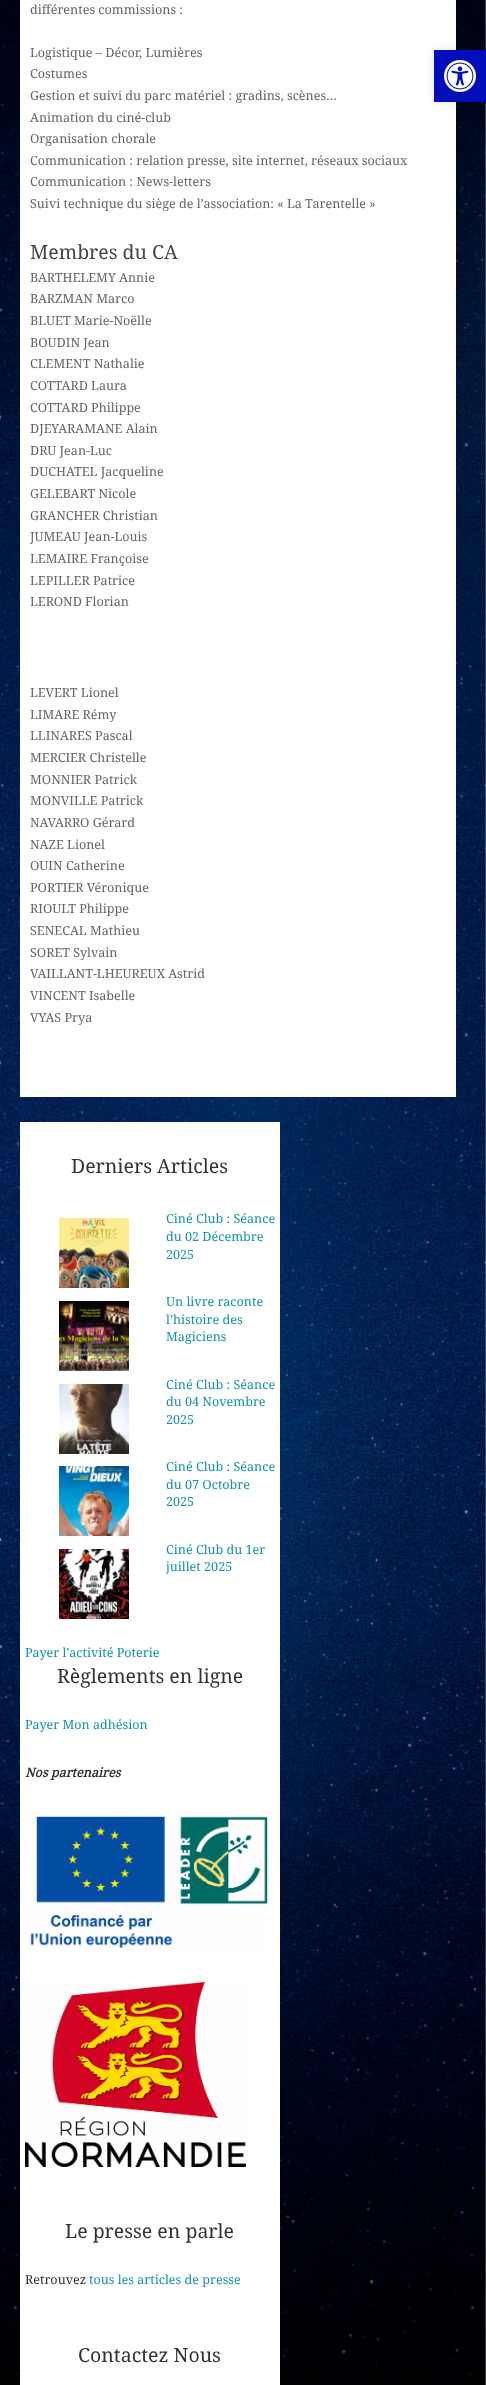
<svg xmlns="http://www.w3.org/2000/svg" width="486" height="2385" viewBox="0 0 486 2385">
  <defs>
    <filter id="blur1" x="-50%" y="-200%" width="200%" height="500%"><feGaussianBlur stdDeviation="5"/></filter>
  </defs>
  <rect width="100%" height="100%" fill="#ffffff"/>
  <image x="0" y="0" width="486" height="2385" href="img1.png"/>
  <rect x="20" y="0" width="436" height="1097" fill="#ffffff"/>
  <text x="30" y="14" font-family="Noto Serif" font-size="12.6" fill="#666666">différentes commissions :</text>
  <text x="30" y="57" font-family="Noto Serif" font-size="12.6" fill="#666666">Logistique – Décor, Lumières</text>
  <text x="30" y="78" font-family="Noto Serif" font-size="12.6" fill="#666666">Costumes</text>
  <text x="30" y="100" font-family="Noto Serif" font-size="12.6" fill="#666666">Gestion et suivi du parc matériel : gradins, scènes…</text>
  <text x="30" y="122" font-family="Noto Serif" font-size="12.6" fill="#666666">Animation du ciné-club</text>
  <text x="30" y="143" font-family="Noto Serif" font-size="12.6" fill="#666666">Organisation chorale</text>
  <text x="30" y="165" font-family="Noto Serif" font-size="12.6" fill="#666666">Communication : relation presse, site internet, réseaux sociaux</text>
  <text x="30" y="186" font-family="Noto Serif" font-size="12.6" fill="#666666">Communication : News-letters</text>
  <text x="30" y="208" font-family="Noto Serif" font-size="12.6" fill="#666666">Suivi technique du siège de l’association: « La Tarentelle »</text>
  <text x="30" y="259" font-family="Noto Serif" font-size="19.5" fill="#444444">Membres du CA</text>
  <text x="30" y="282" font-family="Noto Serif" font-size="12.6" fill="#666666">BARTHELEMY Annie</text>
  <text x="30" y="303" font-family="Noto Serif" font-size="12.6" fill="#666666">BARZMAN Marco</text>
  <text x="30" y="325" font-family="Noto Serif" font-size="12.6" fill="#666666">BLUET Marie-Noëlle</text>
  <text x="30" y="347" font-family="Noto Serif" font-size="12.6" fill="#666666">BOUDIN Jean</text>
  <text x="30" y="368" font-family="Noto Serif" font-size="12.6" fill="#666666">CLEMENT Nathalie</text>
  <text x="30" y="390" font-family="Noto Serif" font-size="12.6" fill="#666666">COTTARD Laura</text>
  <text x="30" y="412" font-family="Noto Serif" font-size="12.6" fill="#666666">COTTARD Philippe</text>
  <text x="30" y="433" font-family="Noto Serif" font-size="12.6" fill="#666666">DJEYARAMANE Alain</text>
  <text x="30" y="455" font-family="Noto Serif" font-size="12.6" fill="#666666">DRU Jean-Luc</text>
  <text x="30" y="476" font-family="Noto Serif" font-size="12.6" fill="#666666">DUCHATEL Jacqueline</text>
  <text x="30" y="498" font-family="Noto Serif" font-size="12.6" fill="#666666">GELEBART Nicole</text>
  <text x="30" y="520" font-family="Noto Serif" font-size="12.6" fill="#666666">GRANCHER Christian</text>
  <text x="30" y="541" font-family="Noto Serif" font-size="12.6" fill="#666666">JUMEAU Jean-Louis</text>
  <text x="30" y="563" font-family="Noto Serif" font-size="12.6" fill="#666666">LEMAIRE Françoise</text>
  <text x="30" y="585" font-family="Noto Serif" font-size="12.6" fill="#666666">LEPILLER Patrice</text>
  <text x="30" y="606" font-family="Noto Serif" font-size="12.6" fill="#666666">LEROND Florian</text>
  <text x="30" y="697" font-family="Noto Serif" font-size="12.6" fill="#666666">LEVERT Lionel</text>
  <text x="30" y="719" font-family="Noto Serif" font-size="12.6" fill="#666666">LIMARE Rémy</text>
  <text x="30" y="740" font-family="Noto Serif" font-size="12.6" fill="#666666">LLINARES Pascal</text>
  <text x="30" y="762" font-family="Noto Serif" font-size="12.6" fill="#666666">MERCIER Christelle</text>
  <text x="30" y="784" font-family="Noto Serif" font-size="12.6" fill="#666666">MONNIER Patrick</text>
  <text x="30" y="805" font-family="Noto Serif" font-size="12.6" fill="#666666">MONVILLE Patrick</text>
  <text x="30" y="827" font-family="Noto Serif" font-size="12.6" fill="#666666">NAVARRO Gérard</text>
  <text x="30" y="849" font-family="Noto Serif" font-size="12.6" fill="#666666">NAZE Lionel</text>
  <text x="30" y="870" font-family="Noto Serif" font-size="12.6" fill="#666666">OUIN Catherine</text>
  <text x="30" y="892" font-family="Noto Serif" font-size="12.6" fill="#666666">PORTIER Véronique</text>
  <text x="30" y="913" font-family="Noto Serif" font-size="12.6" fill="#666666">RIOULT Philippe</text>
  <text x="30" y="935" font-family="Noto Serif" font-size="12.6" fill="#666666">SENECAL Mathieu</text>
  <text x="30" y="957" font-family="Noto Serif" font-size="12.6" fill="#666666">SORET Sylvain</text>
  <text x="30" y="978" font-family="Noto Serif" font-size="12.6" fill="#666666">VAILLANT-LHEUREUX Astrid</text>
  <text x="30" y="1000" font-family="Noto Serif" font-size="12.6" fill="#666666">VINCENT Isabelle</text>
  <text x="30" y="1022" font-family="Noto Serif" font-size="12.6" fill="#666666">VYAS Prya</text>
  <rect x="20" y="1122" width="260" height="1263" fill="#ffffff"/>
  <text x="71" y="1173" font-family="Noto Serif" font-size="19.5" fill="#333333">Derniers Articles</text>
  <image x="59" y="1218" width="70" height="70" href="img2.png"/>
  <text x="166" y="1223" font-family="Noto Serif" font-size="12.6" fill="#1693a5">Ciné Club : Séance</text>
  <text x="166" y="1241" font-family="Noto Serif" font-size="12.6" fill="#1693a5">du 02 Décembre</text>
  <text x="166" y="1259" font-family="Noto Serif" font-size="12.6" fill="#1693a5">2025</text>
  <image x="59" y="1301" width="70" height="70" href="img3.png"/>
  <text x="166" y="1306" font-family="Noto Serif" font-size="12.6" fill="#1693a5">Un livre raconte</text>
  <text x="166" y="1324" font-family="Noto Serif" font-size="12.6" fill="#1693a5">l’histoire des</text>
  <text x="166" y="1341" font-family="Noto Serif" font-size="12.6" fill="#1693a5">Magiciens</text>
  <image x="59" y="1384" width="70" height="70" href="img4.png"/>
  <text x="166" y="1389" font-family="Noto Serif" font-size="12.6" fill="#1693a5">Ciné Club : Séance</text>
  <text x="166" y="1406" font-family="Noto Serif" font-size="12.6" fill="#1693a5">du 04 Novembre</text>
  <text x="166" y="1424" font-family="Noto Serif" font-size="12.6" fill="#1693a5">2025</text>
  <image x="59" y="1466" width="70" height="70" href="img5.png"/>
  <text x="166" y="1471" font-family="Noto Serif" font-size="12.6" fill="#1693a5">Ciné Club : Séance</text>
  <text x="166" y="1489" font-family="Noto Serif" font-size="12.6" fill="#1693a5">du 07 Octobre</text>
  <text x="166" y="1506" font-family="Noto Serif" font-size="12.6" fill="#1693a5">2025</text>
  <image x="59" y="1549" width="70" height="70" href="img6.png"/>
  <text x="166" y="1554" font-family="Noto Serif" font-size="12.6" fill="#1693a5">Ciné Club du 1er</text>
  <text x="166" y="1571" font-family="Noto Serif" font-size="12.6" fill="#1693a5">juillet 2025</text>
  <text x="25" y="1657" font-family="Noto Serif" font-size="12.6" fill="#1693a5">Payer l'activité Poterie</text>
  <text x="57" y="1683" font-family="Noto Serif" font-size="19.5" fill="#333333">Règlements en ligne</text>
  <text x="25" y="1729" font-family="Noto Serif" font-size="12.6" fill="#1693a5">Payer Mon adhésion</text>
  <text x="25" y="1777" font-family="Noto Serif" font-size="12.6" font-weight="bold" font-style="italic" fill="#333333">Nos partenaires</text>
  <image x="30" y="1816" width="238" height="133" href="img7.png"/>
  <image x="25" y="1982" width="221" height="185" href="img8.png"/>
  <text x="65" y="2238" font-family="Noto Serif" font-size="19.5" fill="#333333">Le presse en parle</text>
  <text x="25" y="2284" font-family="Noto Serif" font-size="12.6" fill="#333333">Retrouvez</text>
  <text x="89" y="2284" font-family="Noto Serif" font-size="12.6" fill="#1693a5">tous les articles de presse</text>
  <text x="78" y="2362" font-family="Noto Serif" font-size="19.5" fill="#333333">Contactez Nous</text>
  <rect x="434" y="50" width="52" height="52" fill="#000000" fill-opacity="0.1" filter="url(#blur1)"/>
  <rect x="434" y="50" width="52" height="52" fill="#010eba"/>
  <image x="444" y="60" width="32" height="32" href="img9.png"/>
</svg>
